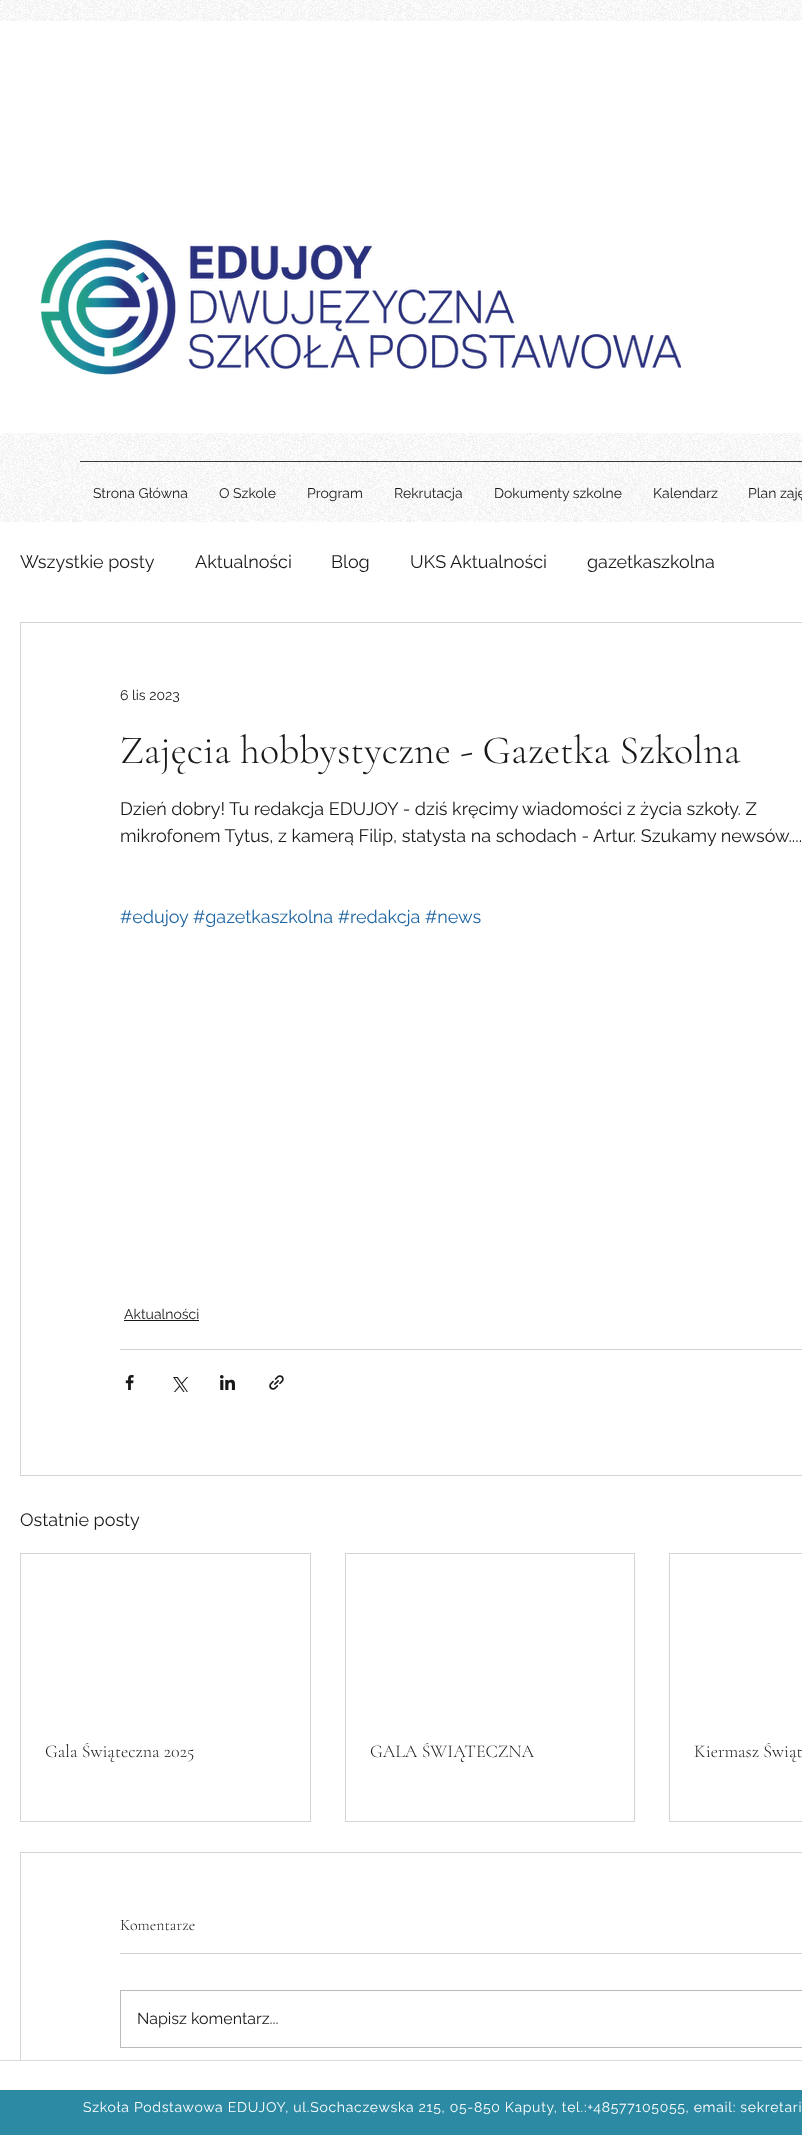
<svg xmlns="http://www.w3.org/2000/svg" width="802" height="2135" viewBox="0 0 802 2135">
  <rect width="100%" height="100%" fill="#ffffff"/>
  <image x="0" y="0" width="802" height="522" href="img1.png"/>
  <rect x="0" y="21" width="802" height="412" fill="#ffffff"/>
  <image x="41" y="239" width="640" height="136" href="img2.png"/>
  <rect x="80" y="461" width="722" height="1" fill="#181818" fill-opacity="0.85"/>
  <text x="93" y="498" font-family="Raleway" font-size="14" fill="#181818">Strona Główna</text>
  <text x="219" y="498" font-family="Raleway" font-size="14" fill="#181818">O Szkole</text>
  <text x="307" y="498" font-family="Raleway" font-size="14" fill="#181818">Program</text>
  <text x="394" y="498" font-family="Raleway" font-size="14" fill="#181818">Rekrutacja</text>
  <text x="494" y="498" font-family="Raleway" font-size="14" fill="#181818">Dokumenty szkolne</text>
  <text x="653" y="498" font-family="Raleway" font-size="14" fill="#181818">Kalendarz</text>
  <text x="748" y="498" font-family="Raleway" font-size="14" fill="#181818">Plan zaję</text>
  <text x="20" y="568" font-family="Raleway" font-size="18" fill="#181818">Wszystkie posty</text>
  <text x="195" y="568" font-family="Raleway" font-size="18" fill="#181818">Aktualności</text>
  <text x="331" y="568" font-family="Raleway" font-size="18" fill="#181818">Blog</text>
  <text x="410" y="568" font-family="Raleway" font-size="18" fill="#181818">UKS Aktualności</text>
  <text x="587" y="568" font-family="Raleway" font-size="18" fill="#181818">gazetkaszkolna</text>
  <rect x="20.5" y="622.5" width="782" height="853" fill="none" stroke="#d4d4d4"/>
  <text x="120" y="700" font-family="Raleway" font-size="14" fill="#181818">6 lis 2023</text>
  <text x="120" y="763" font-family="Cormorant Garamond" font-size="40" font-weight="300" fill="#181818">Zajęcia hobbystyczne - Gazetka Szkolna</text>
  <text x="120" y="815" font-family="Raleway" font-size="18" fill="#181818">Dzień dobry! Tu redakcja EDUJOY - dziś kręcimy wiadomości z życia szkoły. Z</text>
  <text x="120" y="842" font-family="Raleway" font-size="18" fill="#181818">mikrofonem Tytus, z kamerą Filip, statysta na schodach - Artur. Szukamy newsów....</text>
  <text x="120" y="923" font-family="Raleway" font-size="18" fill="#1c64a2">#edujoy</text>
  <text x="193" y="923" font-family="Raleway" font-size="18" fill="#1c64a2">#gazetkaszkolna #redakcja #news</text>
  <text x="124" y="1319" font-family="Raleway" font-size="14" fill="#181818">Aktualności</text>
  <rect x="124" y="1320" width="75" height="1" fill="#181818"/>
  <rect x="120" y="1349" width="682" height="1" fill="#d1d1d1"/>
  <image x="125" y="1375" width="9" height="15" href="img3.png"/>
  <image x="173" y="1377" width="15" height="15" href="img4.png"/>
  <image x="220" y="1375" width="15" height="15" href="img5.png"/>
  <image x="269" y="1375" width="15" height="15" href="img6.png"/>
  <text x="20" y="1526" font-family="Raleway" font-size="18" fill="#181818">Ostatnie posty</text>
  <rect x="20.5" y="1553.5" width="290" height="268" fill="none" stroke="#d4d4d4"/>
  <text x="45" y="1757" font-family="Cormorant Garamond" font-size="18" font-weight="300" fill="#181818">Gala Świąteczna 2025</text>
  <rect x="345.5" y="1553.5" width="289" height="268" fill="none" stroke="#d4d4d4"/>
  <text x="370" y="1757" font-family="Cormorant Garamond" font-size="18" font-weight="300" fill="#181818">GALA ŚWIĄTECZNA</text>
  <rect x="669.5" y="1553.5" width="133" height="268" fill="none" stroke="#d4d4d4"/>
  <text x="694" y="1757" font-family="Cormorant Garamond" font-size="18" font-weight="300" fill="#181818">Kiermasz Świąt</text>
  <rect x="20.5" y="1852.5" width="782" height="264" fill="none" stroke="#d4d4d4"/>
  <text x="120" y="1930" font-family="Cormorant Garamond" font-size="16" font-weight="300" fill="#181818">Komentarze</text>
  <rect x="120" y="1953" width="682" height="1" fill="#d1d1d1"/>
  <rect x="120.5" y="1990.5" width="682" height="57" fill="none" stroke="#bababa"/>
  <text x="137" y="2024" font-family="Raleway" font-size="16" fill="#181818">Napisz komentarz...</text>
  <rect x="20" y="2061" width="1" height="29" fill="#ffffff"/>
  <rect x="0" y="2060" width="802" height="1" fill="#dcdcdc"/>
  <rect x="0" y="2090" width="802" height="45" fill="#2c8aa4"/>
  <text x="83" y="2112" font-family="Raleway" font-size="14" letter-spacing="0.7" fill="#ffffff">Szkoła Podstawowa EDUJOY, ul.Sochaczewska 215, 05-850 Kaputy, tel.:+48577105055, email: sekretari</text>
</svg>
